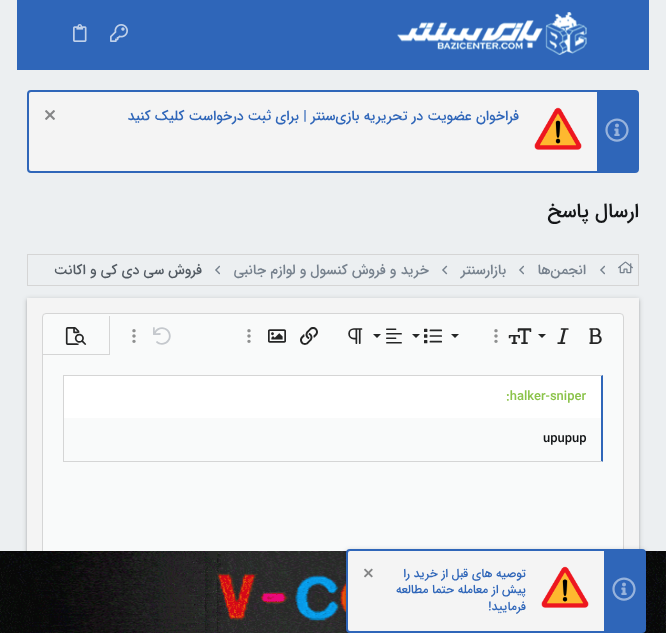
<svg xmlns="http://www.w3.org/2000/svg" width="666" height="633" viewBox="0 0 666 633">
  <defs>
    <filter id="blur1" x="-50%" y="-200%" width="200%" height="500%"><feGaussianBlur stdDeviation="2.5"/></filter>
    <filter id="blur2" x="-50%" y="-200%" width="200%" height="500%"><feGaussianBlur stdDeviation="1"/></filter>
  </defs>
  <rect width="100%" height="100%" fill="#eceff1"/>
  <rect x="17" y="0" width="632" height="70" fill="#2f66b9"/>
  <image x="397" y="12" width="190" height="43" href="img1.png"/>
  <image x="110" y="24" width="18" height="18" href="img2.png"/>
  <image x="73" y="24" width="14" height="18" href="img3.png"/>
  <rect x="28" y="91" width="610" height="81" rx="3" fill="#f4f4f4" stroke="#2f66b9" stroke-width="2"/>
  <rect x="597" y="92" width="40" height="79" fill="#2f66b9"/>
  <image x="605" y="118" width="24" height="24" href="img4.png"/>
  <image x="534" y="107" width="48" height="43" href="img5.png"/>
  <text x="519" y="120" font-family="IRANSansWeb" font-size="14" font-weight="500" direction="rtl" fill="#2f66b9">فراخوان عضویت در تحریریه بازی‌سنتر | برای ثبت درخواست کلیک کنید</text>
  <image x="45" y="110" width="10" height="10" href="img6.png"/>
  <text x="639" y="217" font-family="IRANSansWeb" font-size="20" font-weight="500" direction="rtl" fill="#141618">ارسال پاسخ</text>
  <rect x="27.5" y="254.5" width="611" height="31" fill="none" stroke="#d5d5d5"/>
  <image x="618" y="261" width="15" height="13" href="img7.png"/>
  <image x="600" y="265" width="5" height="10" href="img8.png"/>
  <text x="586" y="274" font-family="IRANSansWeb" font-size="14" font-weight="500" direction="rtl" fill="#76818d">انجمن‌ها</text>
  <image x="519" y="265" width="5" height="10" href="img8.png"/>
  <text x="506" y="274" font-family="IRANSansWeb" font-size="14" font-weight="500" direction="rtl" fill="#76818d">بازارسنتر</text>
  <image x="442" y="265" width="6" height="10" href="img9.png"/>
  <text x="429" y="274" font-family="IRANSansWeb" font-size="14" font-weight="500" direction="rtl" fill="#76818d">خرید و فروش کنسول و لوازم جانبی</text>
  <image x="215" y="265" width="5" height="10" href="img8.png"/>
  <text x="202" y="274" font-family="IRANSansWeb" font-size="14" font-weight="500" direction="rtl" fill="#535b63">فروش سی دی کی و اکانت</text>
  <rect x="27" y="299" width="612" height="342" fill="#000000" fill-opacity="0.2" filter="url(#blur1)"/>
  <rect x="27" y="300" width="612" height="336" fill="#000000" fill-opacity="0.14" filter="url(#blur2)"/>
  <rect x="27" y="298" width="612" height="253" fill="#f4f4f4"/>
  <rect x="42.5" y="313.5" width="581" height="292" rx="3.5" fill="#f9fafa" stroke="#d5d5d5"/>
  <image x="589" y="328" width="13" height="16" href="img10.png"/>
  <image x="557" y="328" width="12" height="16" href="img11.png"/>
  <path d="M538 334H546L542 338Z" fill="#252626"/>
  <image x="508" y="328" width="24" height="16" href="img12.png"/>
  <image x="494" y="329" width="4" height="14" href="img13.png"/>
  <path d="M451 334H459L455 338Z" fill="#252626"/>
  <image x="424" y="328" width="18" height="16" href="img14.png"/>
  <path d="M412 334H420L416 338Z" fill="#252626"/>
  <image x="386" y="328" width="16" height="16" href="img15.png"/>
  <path d="M373 334H381L377 338Z" fill="#252626"/>
  <image x="348" y="328" width="15" height="16" href="img16.png"/>
  <image x="300" y="327" width="18" height="18" href="img17.png"/>
  <image x="268" y="329" width="18" height="14" href="img18.png"/>
  <image x="247" y="329" width="4" height="14" href="img13.png"/>
  <image x="153" y="327" width="18" height="18" href="img19.png"/>
  <image x="132" y="329" width="4" height="14" href="img13.png"/>
  <rect x="109" y="316" width="1" height="39" fill="#d5d5d5"/>
  <rect x="43" y="354" width="67" height="1" fill="#d5d5d5"/>
  <image x="65" y="327" width="22" height="18" href="img20.png"/>
  <path d="M63 375H603L601 376H64Z" fill="#d5d5d5"/>
  <path d="M603 375V462L601 461V376Z" fill="#2f66b9"/>
  <path d="M603 462H63L64 461H601Z" fill="#d5d5d5"/>
  <rect x="63" y="375" width="1" height="87" fill="#d5d5d5"/>
  <rect x="64" y="376" width="537" height="42" fill="#ffffff"/>
  <text x="506" y="400" font-family="IRANSansWeb" font-size="13" font-weight="500" fill="#8bc34a">:halker-sniper</text>
  <text x="543" y="442" font-family="IRANSansWeb" font-size="13" font-weight="500" fill="#141618">upupup</text>
  <image x="0" y="551" width="666" height="82" href="img21.png"/>
  <rect x="346" y="550" width="300" height="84" rx="4" fill="#000000" fill-opacity="0.2" filter="url(#blur1)"/>
  <rect x="346" y="551" width="300" height="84" rx="4" fill="#000000" fill-opacity="0.14" filter="url(#blur2)"/>
  <rect x="347" y="550" width="298" height="82" rx="3" fill="#f4f4f4" stroke="#2f66b9" stroke-width="2"/>
  <rect x="604" y="551" width="40" height="80" fill="#2f66b9"/>
  <image x="612" y="577" width="24" height="24" href="img4.png"/>
  <image x="541" y="566" width="48" height="42" href="img22.png"/>
  <text x="526" y="577" font-family="IRANSansWeb" font-size="12" font-weight="500" direction="rtl" fill="#2f66b9">توصیه های قبل از خرید را</text>
  <image x="364" y="568" width="9" height="10" href="img23.png"/>
  <text x="526" y="593" font-family="IRANSansWeb" font-size="12" font-weight="500" direction="rtl" fill="#2f66b9">پیش از معامله حتما مطالعه</text>
  <text x="526" y="610" font-family="IRANSansWeb" font-size="12" font-weight="500" direction="rtl" fill="#2f66b9">فرمایید!</text>
</svg>
